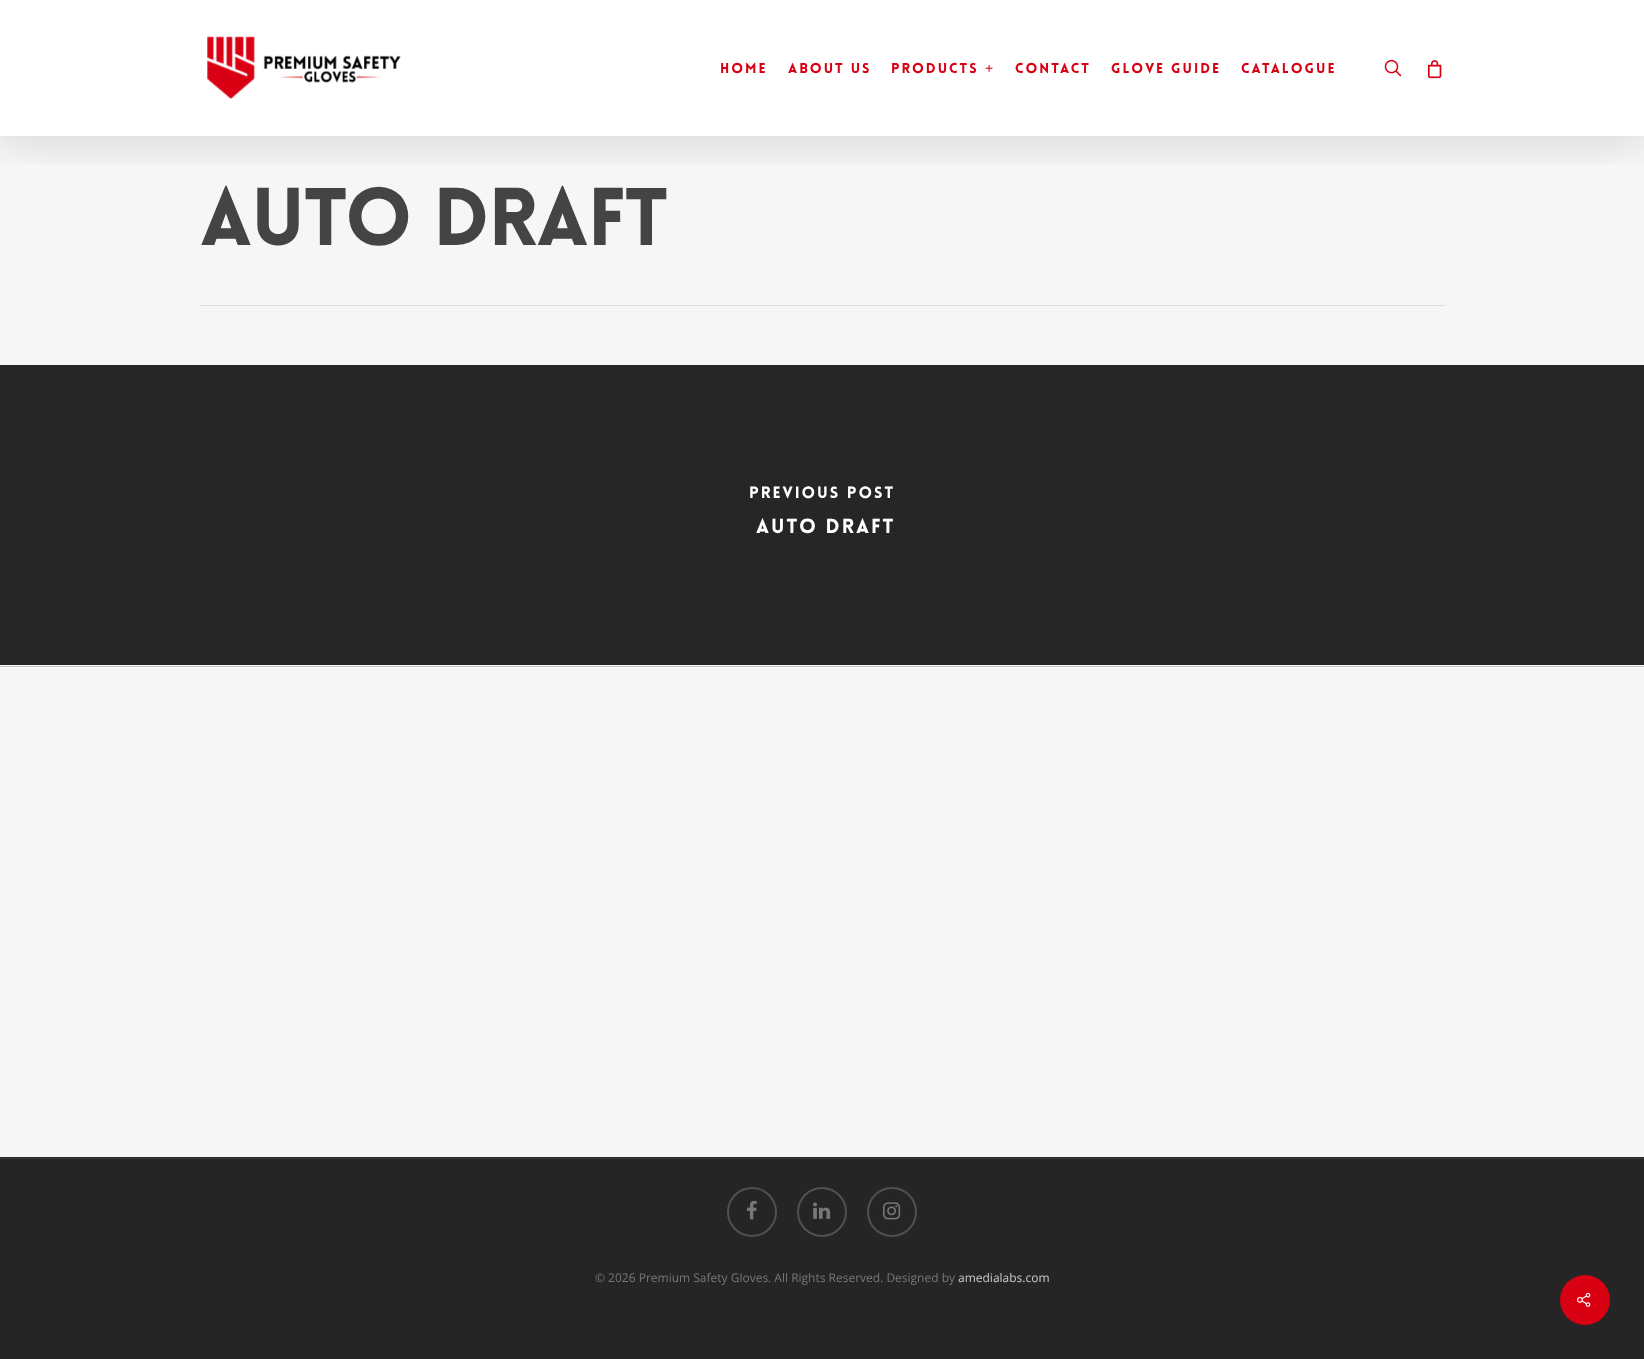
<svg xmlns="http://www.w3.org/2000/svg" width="1644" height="1359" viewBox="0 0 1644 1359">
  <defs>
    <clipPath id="clip1"><rect x="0" y="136" width="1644" height="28"/></clipPath>
    <filter id="blur1" x="-50%" y="-200%" width="200%" height="500%"><feGaussianBlur stdDeviation="22.5"/></filter>
  </defs>
  <rect width="100%" height="100%" fill="#ffffff"/>
  <rect x="0" y="136" width="1644" height="1021" fill="#f6f6f6"/>
  <g clip-path="url(#clip1)">
    <rect x="0" y="3" width="1644" height="136" fill="#000000" fill-opacity="0.15" filter="url(#blur1)"/>
  </g>
  <image x="207" y="36" width="194" height="63" href="img1.png"/>
  <text x="720" y="73" font-family="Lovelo" font-size="14" font-weight="900" letter-spacing="2" fill="#d90014">Home</text>
  <text x="788" y="73" font-family="Lovelo" font-size="14" font-weight="900" letter-spacing="2" fill="#d90014">About Us</text>
  <text x="891" y="73" font-family="Lovelo" font-size="14" font-weight="900" letter-spacing="2" fill="#d90014">Products</text>
  <text x="985" y="73" font-family="Liberation Sans" font-size="14" letter-spacing="2" fill="#d90014">+</text>
  <text x="1015" y="73" font-family="Lovelo" font-size="14" font-weight="900" letter-spacing="2" fill="#d90014">Contact</text>
  <text x="1111" y="73" font-family="Lovelo" font-size="14" font-weight="900" letter-spacing="2" fill="#d90014">Glove Guide</text>
  <text x="1241" y="73" font-family="Lovelo" font-size="14" font-weight="900" letter-spacing="2" fill="#d90014">Catalogue</text>
  <image x="1384" y="59" width="18" height="18" href="img2.png"/>
  <image x="1428" y="60" width="14" height="19" href="img3.png"/>
  <rect x="200" y="305" width="1245" height="1" fill="#dddddd"/>
  <text x="200" y="245" font-family="Lovelo" font-size="80" font-weight="900" letter-spacing="-1" fill="#444444">Auto Draft</text>
  <rect x="0" y="365" width="1644" height="300" fill="#262626"/>
  <text x="749" y="498" font-family="Lovelo" font-size="16" font-weight="900" letter-spacing="2" fill="#ffffff">Previous Post</text>
  <text x="756" y="533" font-family="Lovelo" font-size="20" font-weight="900" letter-spacing="2" fill="#ffffff">Auto Draft</text>
  <rect x="0" y="666" width="1644" height="1" fill="#c5c5c5"/>
  <rect x="0" y="1157" width="1644" height="202" fill="#252525"/>
  <rect x="0" y="1158" width="1644" height="1" fill="#3b3b3b"/>
  <image x="747" y="1200" width="10" height="20" href="img4.png"/>
  <circle cx="752" cy="1212" r="24" fill="none" stroke="#515151" stroke-width="2"/>
  <image x="813" y="1202" width="18" height="17" href="img5.png"/>
  <circle cx="822" cy="1212" r="24" fill="none" stroke="#515151" stroke-width="2"/>
  <image x="883" y="1202" width="18" height="18" href="img6.png"/>
  <circle cx="892" cy="1212" r="24" fill="none" stroke="#515151" stroke-width="2"/>
  <text x="595" y="1282" font-family="Open Sans" font-size="12" fill="#777777">© 2026 Premium Safety Gloves. All Rights Reserved. Designed by</text>
  <text x="958" y="1282" font-family="Open Sans" font-size="12" fill="#cccccc">amedialabs.com</text>
  <circle cx="1585" cy="1300" r="25" fill="#d90014"/>
  <image x="1577" y="1292" width="14" height="15" href="img7.png"/>
</svg>
